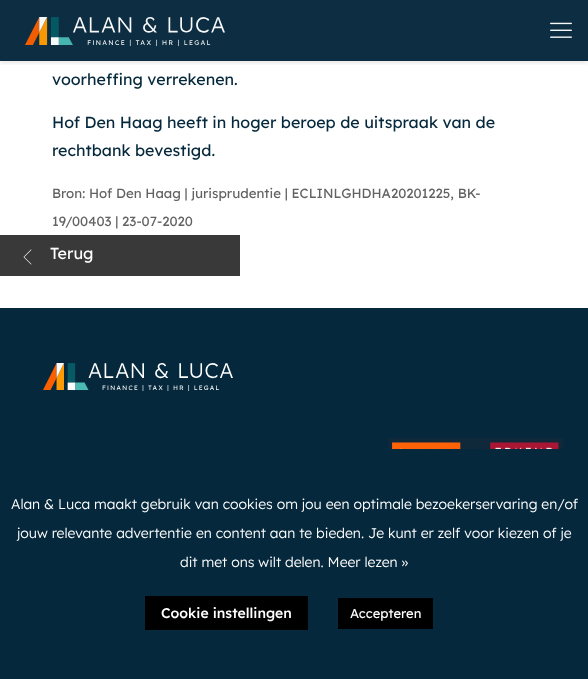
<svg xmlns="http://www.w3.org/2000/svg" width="588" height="679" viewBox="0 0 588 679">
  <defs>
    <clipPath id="clip1"><rect x="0" y="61" width="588" height="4"/></clipPath>
    <filter id="blur1" x="-50%" y="-200%" width="200%" height="500%"><feGaussianBlur stdDeviation="2.5"/></filter>
  </defs>
  <rect width="100%" height="100%" fill="#ffffff"/>
  <rect x="0" y="0" width="588" height="61" fill="#0d2e42"/>
  <g clip-path="url(#clip1)">
    <rect x="0" y="2" width="588" height="61" fill="#080808" fill-opacity="0.1" filter="url(#blur1)"/>
  </g>
  <image x="25" y="17" width="200" height="29" href="img1.png"/>
  <image x="550" y="22" width="22" height="16" href="img2.png"/>
  <text x="52" y="85" font-family="Lexend Deca" font-size="16" fill="#05283c">voorheffing verrekenen.</text>
  <text x="52" y="128" font-family="Lexend Deca" font-size="16" fill="#05283c">Hof Den Haag heeft in hoger beroep de uitspraak van de</text>
  <text x="52" y="156" font-family="Lexend Deca" font-size="16" fill="#05283c">rechtbank bevestigd.</text>
  <text x="52" y="198" font-family="Lexend Deca" font-size="13.3" fill="#626262">Bron: Hof Den Haag | jurisprudentie | ECLINLGHDHA20201225, BK-</text>
  <text x="52" y="226" font-family="Lexend Deca" font-size="13.3" fill="#626262">19/00403 | 23-07-2020</text>
  <rect x="0" y="235" width="240" height="41" fill="#393939"/>
  <image x="23" y="249" width="9" height="16" href="img3.png"/>
  <text x="50" y="259" font-family="Lexend Deca" font-size="16" fill="#ffffff">Terug</text>
  <rect x="0" y="308" width="588" height="371" fill="#05283c"/>
  <image x="43" y="363" width="190" height="28" href="img4.png"/>
  <image x="388" y="438" width="175" height="11" href="img5.png"/>
  <text x="11" y="509" font-family="Lexend Deca" font-size="14" font-weight="300" fill="#ffffff">Alan &amp; Luca maakt gebruik van cookies om jou een optimale bezoekerservaring en/of</text>
  <text x="17" y="538" font-family="Lexend Deca" font-size="14" font-weight="300" fill="#ffffff">jouw relevante advertentie en content aan te bieden. Je kunt er zelf voor kiezen of je</text>
  <text x="180" y="567" font-family="Lexend Deca" font-size="14" font-weight="300" fill="#ffffff">dit met ons wilt delen. Meer lezen »</text>
  <rect x="145" y="596" width="163" height="34" fill="#000000"/>
  <text x="161" y="618" font-family="Lexend Deca" font-size="14" font-weight="500" fill="#ffffff">Cookie instellingen</text>
  <rect x="338" y="598" width="95" height="31" fill="#000000"/>
  <text x="350" y="618" font-family="Lexend Deca" font-size="13" fill="#ffffff">Accepteren</text>
</svg>
